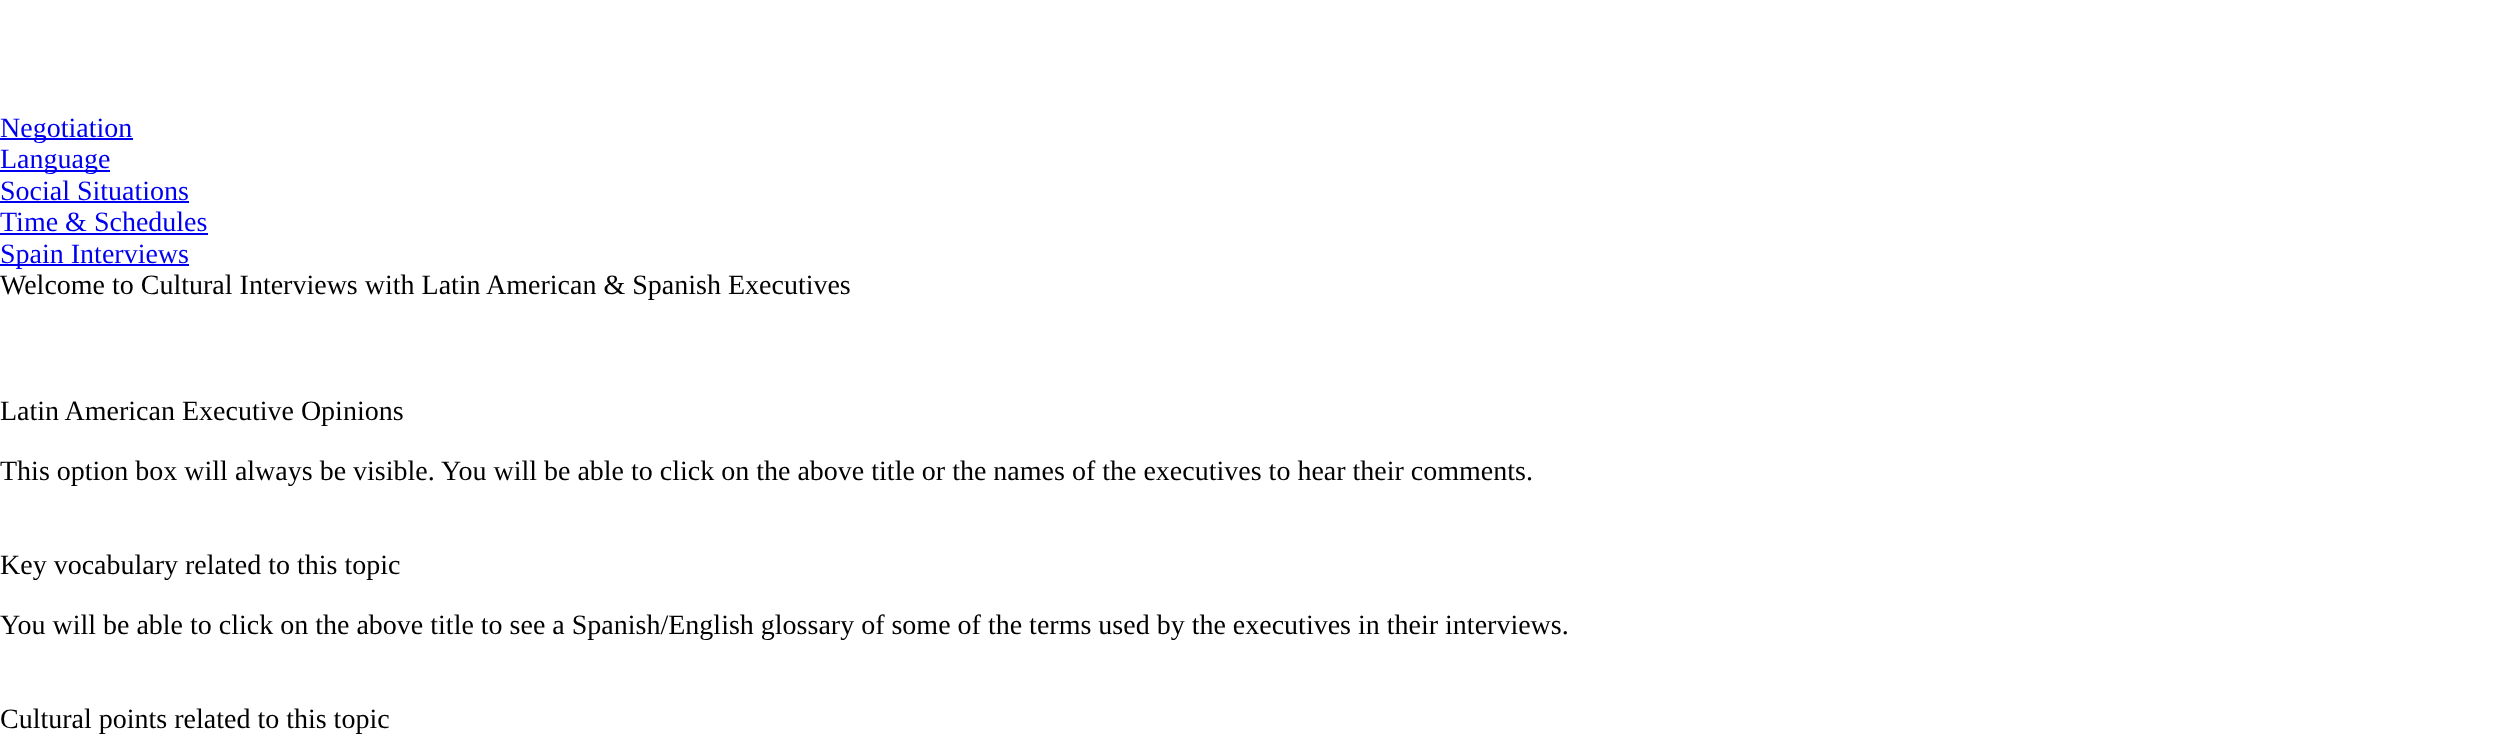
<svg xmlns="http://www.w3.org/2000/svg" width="2520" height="740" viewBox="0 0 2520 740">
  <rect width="100%" height="100%" fill="#ffffff"/>
  <rect x="0" y="138" width="133" height="2" fill="#0000ee"/>
  <text x="0" y="137" font-family="Liberation Serif" font-size="28" fill="#0000ee">Negotiation</text>
  <rect x="0" y="170" width="110" height="2" fill="#0000ee"/>
  <text x="0" y="168" font-family="Liberation Serif" font-size="28" fill="#0000ee">Language</text>
  <text x="0" y="200" font-family="Liberation Serif" font-size="28" fill="#0000ee">Social Situations</text>
  <rect x="0" y="201" width="189" height="2" fill="#0000ee"/>
  <text x="0" y="231" font-family="Liberation Serif" font-size="28" fill="#0000ee">Time &amp; Schedules</text>
  <rect x="0" y="233" width="208" height="2" fill="#0000ee"/>
  <rect x="0" y="264" width="189" height="2" fill="#0000ee"/>
  <text x="0" y="263" font-family="Liberation Serif" font-size="28" fill="#0000ee">Spain Interviews</text>
  <text x="0" y="294" font-family="Liberation Serif" font-size="28" fill="#000000">Welcome to Cultural Interviews with Latin American &amp; Spanish Executives</text>
  <text x="0" y="420" font-family="Liberation Serif" font-size="28" fill="#000000">Latin American Executive Opinions</text>
  <text x="0" y="480" font-family="Liberation Serif" font-size="28" fill="#000000">This option box will always be visible.</text>
  <text x="441" y="480" font-family="Liberation Serif" font-size="28" fill="#000000">You will be able to click on the above title or the names of the executives to hear their comments.</text>
  <text x="0" y="574" font-family="Liberation Serif" font-size="28" fill="#000000">Key vocabulary related to this topic</text>
  <text x="0" y="634" font-family="Liberation Serif" font-size="28" fill="#000000">You will be able to click on the above title to see a Spanish/English glossary of some of the terms used by the executives in their interviews.</text>
  <text x="0" y="728" font-family="Liberation Serif" font-size="28" fill="#000000">Cultural points related to this topic</text>
</svg>
